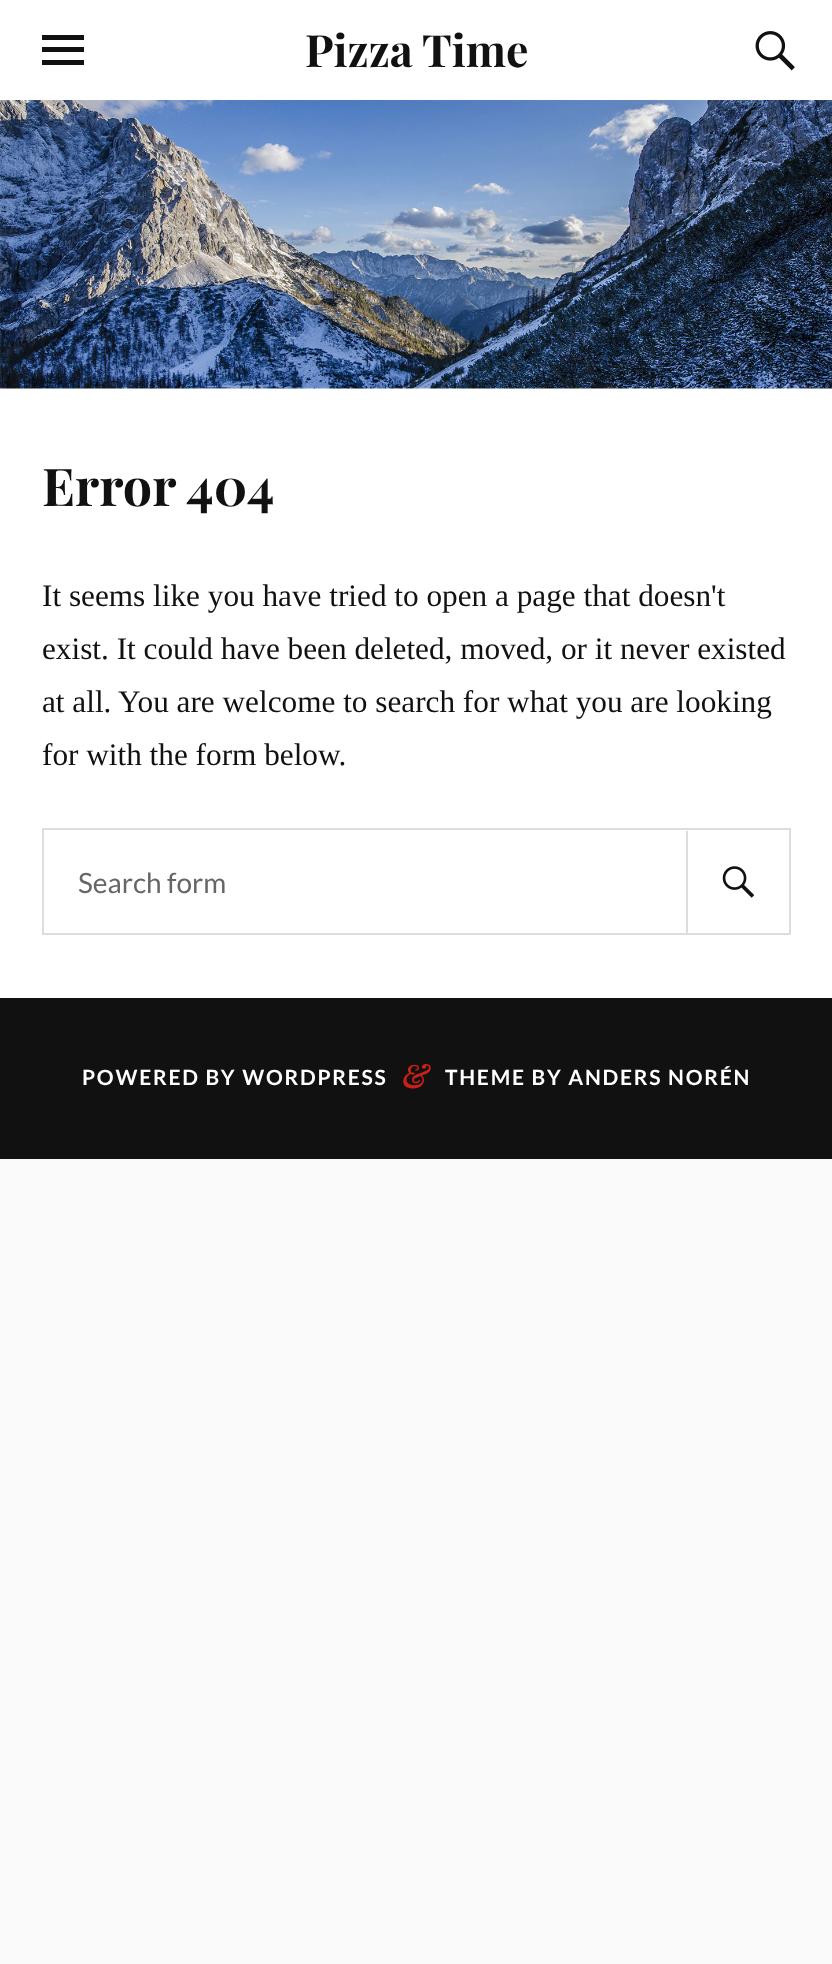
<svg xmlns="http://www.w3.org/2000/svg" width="832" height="1964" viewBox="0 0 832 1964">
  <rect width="100%" height="100%" fill="#fafafa"/>
  <rect x="0" y="0" width="832" height="100" fill="#ffffff"/>
  <rect x="42" y="35" width="42" height="5" fill="#111111"/>
  <rect x="42" y="47" width="42" height="5" fill="#111111"/>
  <rect x="42" y="60" width="42" height="5" fill="#111111"/>
  <image x="755" y="31" width="40" height="40" href="img1.png"/>
  <text x="305" y="67" font-family="Playfair Display" font-size="44.5" font-weight="bold" fill="#111111">Pizza Time</text>
  <image x="0" y="100" width="832" height="289" href="img2.png"/>
  <rect x="0" y="389" width="832" height="609" fill="#ffffff"/>
  <text x="42" y="506" font-family="Playfair Display" font-size="52" font-weight="bold" fill="#111111">Error 404</text>
  <text x="42" y="606" font-family="Liberation Serif" font-size="31.25" fill="#111111">It seems like you have tried to open a page that doesn't</text>
  <text x="42" y="659" font-family="Liberation Serif" font-size="31.25" fill="#111111">exist. It could have been deleted, moved, or it never existed</text>
  <text x="42" y="712" font-family="Liberation Serif" font-size="31.25" fill="#111111">at all. You are welcome to search for what you are looking</text>
  <text x="42" y="765" font-family="Liberation Serif" font-size="31.25" fill="#111111">for with the form below.</text>
  <rect x="43" y="829" width="747" height="105" fill="none" stroke="#dddddd" stroke-width="2"/>
  <text x="78" y="893" font-family="Lato" font-size="28" fill="#666666">Search form</text>
  <rect x="686" y="831" width="2" height="102" fill="#dddddd"/>
  <image x="722" y="866" width="33" height="32" href="img3.png"/>
  <rect x="0" y="998" width="832" height="161" fill="#111111"/>
  <text x="82" y="1085" font-family="Lato" font-size="21" font-weight="bold" letter-spacing="1.75" fill="#ffffff">POWERED BY WORDPRESS</text>
  <text x="402" y="1088" font-family="Playfair Display" font-size="32" font-weight="bold" font-style="italic" letter-spacing="1.75" fill="#ca2017">&amp;</text>
  <text x="445" y="1085" font-family="Lato" font-size="21" font-weight="bold" letter-spacing="1.75" fill="#ffffff">THEME BY ANDERS NORÉN</text>
</svg>
